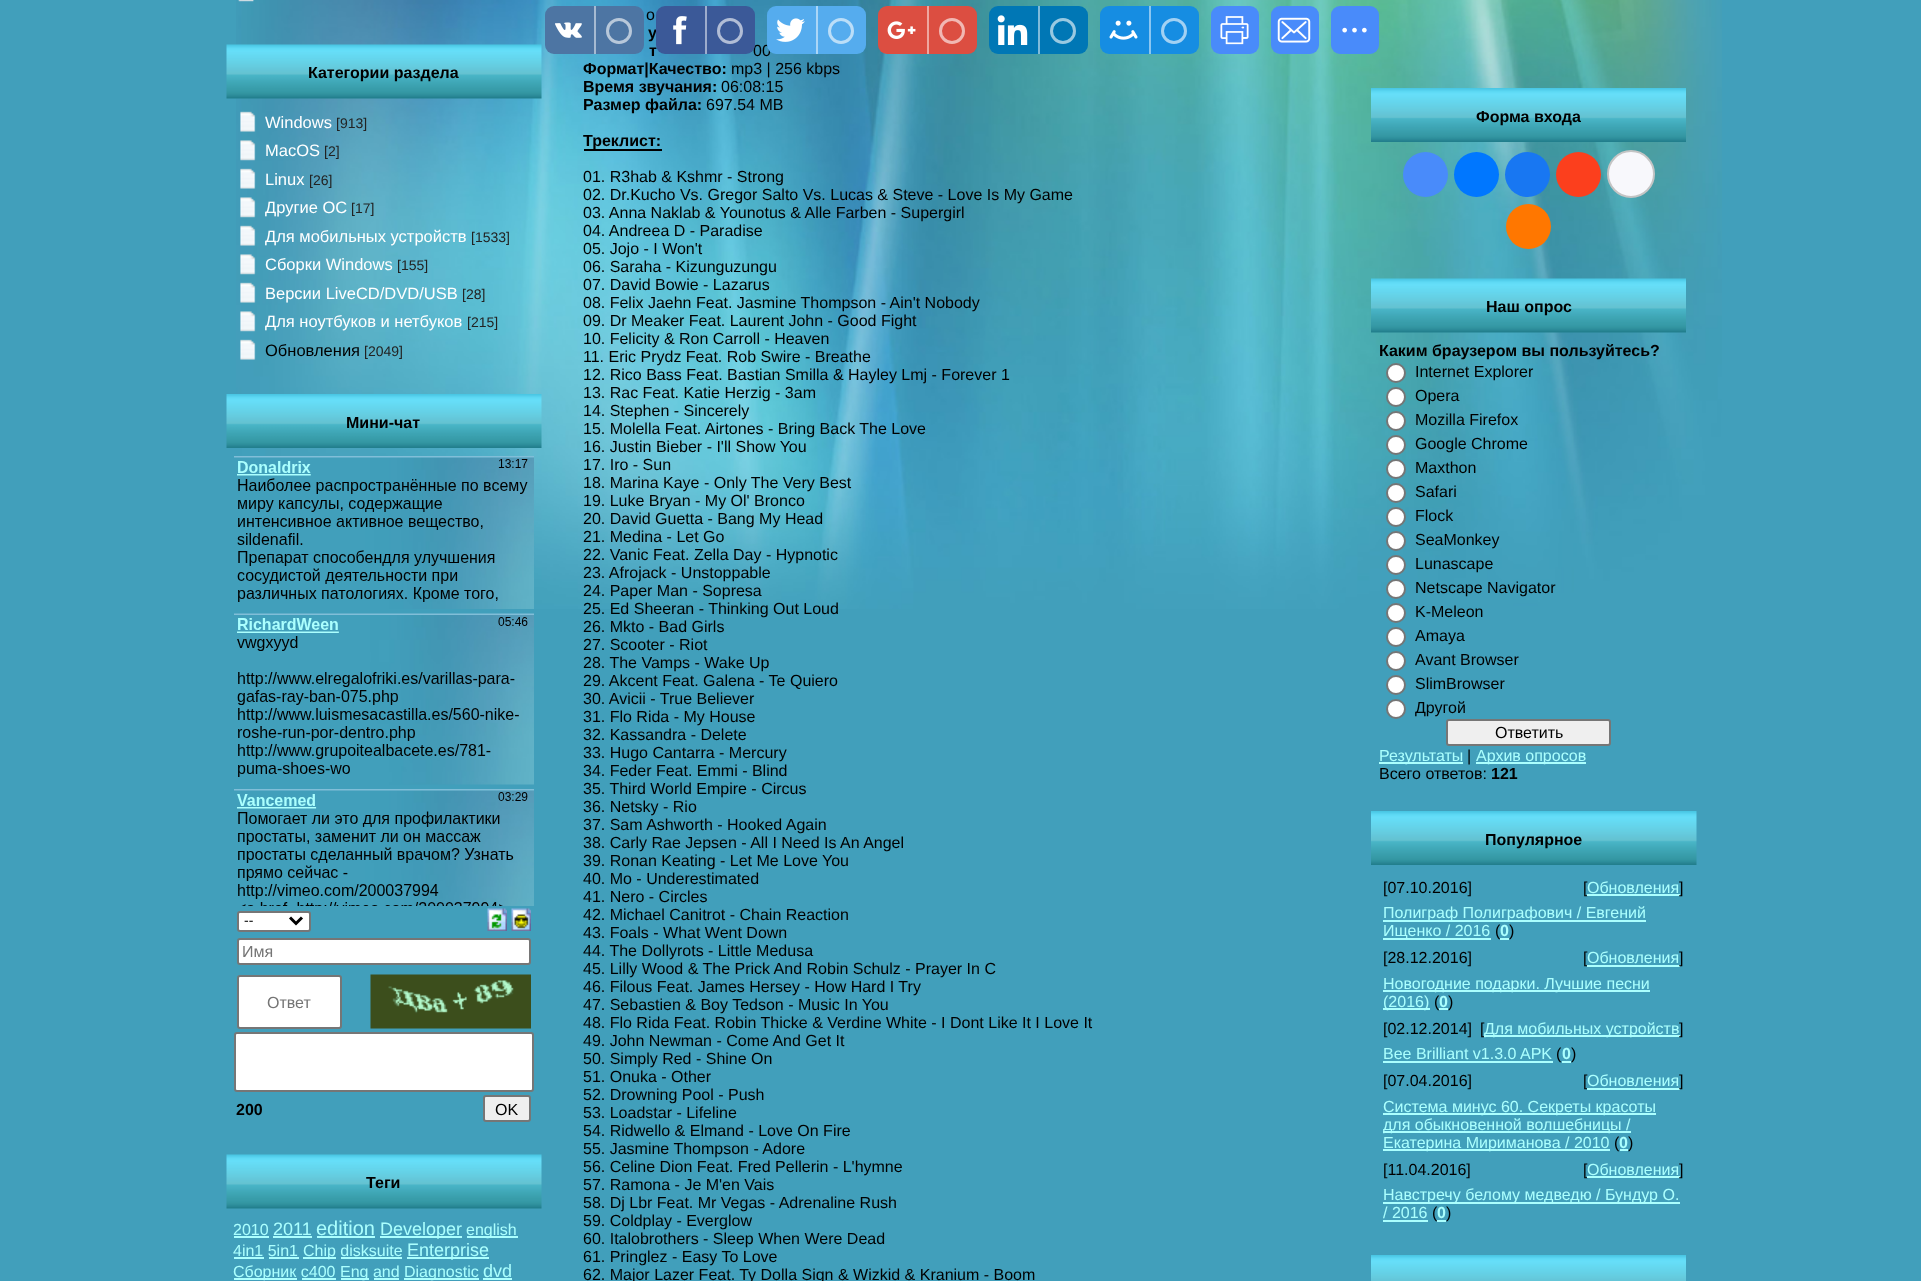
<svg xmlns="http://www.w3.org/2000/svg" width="1921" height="1281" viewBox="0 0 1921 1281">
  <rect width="100%" height="100%" fill="#419fbb"/>
  <image x="236" y="0" width="1486" height="609" href="img10.png"/>
  <rect x="545" y="6" width="99" height="48" rx="9" fill="#4d75a3"/>
  <image x="555" y="22" width="27" height="16" href="img1.png"/>
  <rect x="594" y="6" width="2" height="48" fill="#a6bad1"/>
  <circle cx="619" cy="31" r="11.5" fill="none" stroke="#b8c8da" stroke-width="3"/>
  <text x="648" y="38" font-family="Liberation Sans" font-size="16" font-weight="bold" fill="#000000">у</text>
  <text x="649" y="56" font-family="Liberation Sans" font-size="16" font-weight="bold" fill="#000000">т</text>
  <text x="753" y="56" font-family="Liberation Sans" font-size="16" fill="#000000">00</text>
  <rect x="656" y="6" width="99" height="48" rx="9" fill="#3b5998"/>
  <image x="673" y="16" width="14" height="29" href="img2.png"/>
  <rect x="705" y="6" width="2" height="48" fill="#9daccc"/>
  <circle cx="730" cy="31" r="11.5" fill="none" stroke="#b1bdd6" stroke-width="3"/>
  <rect x="767" y="6" width="99" height="48" rx="9" fill="#55acee"/>
  <image x="776" y="18" width="29" height="24" href="img3.png"/>
  <rect x="816" y="6" width="2" height="48" fill="#aad6f7"/>
  <circle cx="841" cy="31" r="11.5" fill="none" stroke="#bbdef8" stroke-width="3"/>
  <rect x="878" y="6" width="99" height="48" rx="9" fill="#dc4e41"/>
  <image x="887" y="21" width="29" height="18" href="img4.png"/>
  <rect x="927" y="6" width="2" height="48" fill="#eea7a0"/>
  <circle cx="952" cy="31" r="11.5" fill="none" stroke="#f1b8b3" stroke-width="3"/>
  <rect x="989" y="6" width="99" height="48" rx="9" fill="#0077b5"/>
  <image x="997" y="15" width="31" height="30" href="img5.png"/>
  <rect x="1038" y="6" width="2" height="48" fill="#80bbda"/>
  <circle cx="1063" cy="31" r="11.5" fill="none" stroke="#99c9e1" stroke-width="3"/>
  <rect x="1100" y="6" width="99" height="48" rx="9" fill="#168de2"/>
  <image x="1109" y="20" width="29" height="20" href="img6.png"/>
  <rect x="1149" y="6" width="2" height="48" fill="#8bc6f1"/>
  <circle cx="1174" cy="31" r="11.5" fill="none" stroke="#a2d1f3" stroke-width="3"/>
  <rect x="1211" y="6" width="48" height="48" rx="9" fill="#498bfa"/>
  <image x="1220" y="16" width="29" height="29" href="img7.png"/>
  <rect x="1271" y="6" width="48" height="48" rx="9" fill="#498bfa"/>
  <image x="1277" y="17" width="34" height="26" href="img8.png"/>
  <rect x="1331" y="6" width="48" height="48" rx="9" fill="#498bfa"/>
  <image x="1342" y="27" width="25" height="6" href="img9.png"/>
  <image x="238" y="0" width="16" height="2" href="img11.png"/>
  <image x="226" y="44" width="316" height="55" href="img12.png"/>
  <text x="308" y="78" font-family="Liberation Sans" font-size="16" font-weight="bold" fill="#000000">Категории раздела</text>
  <image x="240" y="111" width="16" height="21" href="img13.png"/>
  <text x="265" y="128" font-family="Liberation Sans" font-size="16.5" fill="#ffffff">Windows</text>
  <text x="336" y="128" font-family="Liberation Sans" font-size="14" fill="#222222">[913]</text>
  <image x="240" y="140" width="16" height="21" href="img14.png"/>
  <text x="265" y="156" font-family="Liberation Sans" font-size="16.5" fill="#ffffff">MacOS</text>
  <text x="324" y="156" font-family="Liberation Sans" font-size="14" fill="#222222">[2]</text>
  <image x="240" y="168" width="16" height="21" href="img15.png"/>
  <text x="265" y="185" font-family="Liberation Sans" font-size="16.5" fill="#ffffff">Linux</text>
  <text x="309" y="185" font-family="Liberation Sans" font-size="14" fill="#222222">[26]</text>
  <image x="240" y="197" width="16" height="21" href="img16.png"/>
  <text x="265" y="213" font-family="Liberation Sans" font-size="16.5" fill="#ffffff">Другие ОС</text>
  <text x="351" y="213" font-family="Liberation Sans" font-size="14" fill="#222222">[17]</text>
  <image x="240" y="225" width="16" height="21" href="img17.png"/>
  <text x="265" y="242" font-family="Liberation Sans" font-size="16.5" fill="#ffffff">Для мобильных устройств</text>
  <text x="471" y="242" font-family="Liberation Sans" font-size="14" fill="#222222">[1533]</text>
  <image x="240" y="254" width="16" height="21" href="img18.png"/>
  <text x="265" y="270" font-family="Liberation Sans" font-size="16.5" fill="#ffffff">Сборки Windows</text>
  <text x="397" y="270" font-family="Liberation Sans" font-size="14" fill="#222222">[155]</text>
  <image x="240" y="282" width="16" height="21" href="img19.png"/>
  <text x="265" y="299" font-family="Liberation Sans" font-size="16.5" fill="#ffffff">Версии LiveCD/DVD/USB</text>
  <text x="462" y="299" font-family="Liberation Sans" font-size="14" fill="#222222">[28]</text>
  <image x="240" y="311" width="16" height="21" href="img20.png"/>
  <text x="265" y="327" font-family="Liberation Sans" font-size="16.5" fill="#ffffff">Для ноутбуков и нетбуков</text>
  <text x="467" y="327" font-family="Liberation Sans" font-size="14" fill="#222222">[215]</text>
  <image x="240" y="339" width="16" height="21" href="img21.png"/>
  <text x="265" y="356" font-family="Liberation Sans" font-size="16.5" fill="#000000">Обновления</text>
  <text x="364" y="356" font-family="Liberation Sans" font-size="14" fill="#222222">[2049]</text>
  <image x="226" y="394" width="316" height="54" href="img22.png"/>
  <text x="346" y="428" font-family="Liberation Sans" font-size="16" font-weight="bold" fill="#000000">Мини-чат</text>
  <image x="234" y="456" width="300" height="450" href="img23.png"/>
  <rect x="238" y="912" width="72" height="19" rx="2" fill="#ffffff" stroke="#767676" stroke-width="2"/>
  <path d="M290 917.5L296 923.5L302 917.5" fill="none" stroke="#000000" stroke-width="3"/>
  <text x="244" y="925" font-family="Liberation Sans" font-size="14" fill="#000000">--</text>
  <image x="487" y="908" width="20" height="23" href="img24.png"/>
  <image x="511" y="908" width="20" height="23" href="img25.png"/>
  <rect x="238" y="939" width="292" height="25" rx="2" fill="#ffffff" stroke="#767676" stroke-width="2"/>
  <text x="242" y="957" font-family="Liberation Sans" font-size="16" fill="#757575">Имя</text>
  <rect x="238" y="976" width="103" height="52" rx="2" fill="#ffffff" stroke="#767676" stroke-width="2"/>
  <text x="267" y="1008" font-family="Liberation Sans" font-size="16" fill="#757575">Ответ</text>
  <image x="370" y="974" width="161" height="55" href="img26.png"/>
  <rect x="235" y="1033" width="298" height="58" rx="2" fill="#ffffff" stroke="#767676" stroke-width="2"/>
  <text x="236" y="1115" font-family="Liberation Sans" font-size="16" font-weight="bold" fill="#000000">200</text>
  <rect x="484" y="1096" width="46" height="25" rx="2" fill="#efefef" stroke="#767676" stroke-width="2"/>
  <text x="495" y="1115" font-family="Liberation Sans" font-size="16" fill="#000000">OK</text>
  <image x="226" y="1154" width="316" height="55" href="img27.png"/>
  <text x="366" y="1188" font-family="Liberation Sans" font-size="16" font-weight="bold" fill="#000000">Теги</text>
  <text x="233" y="1235" font-family="Liberation Sans" font-size="16" fill="#abfffe">2010</text>
  <rect x="234" y="1236" width="35" height="2" fill="#abfffe"/>
  <text x="273" y="1235" font-family="Liberation Sans" font-size="18" fill="#abfffe">2011</text>
  <rect x="273" y="1236" width="39" height="2" fill="#abfffe"/>
  <text x="316" y="1235" font-family="Liberation Sans" font-size="20" fill="#abfffe">edition</text>
  <rect x="317" y="1236" width="58" height="2" fill="#abfffe"/>
  <rect x="380" y="1236" width="82" height="2" fill="#abfffe"/>
  <text x="380" y="1235" font-family="Liberation Sans" font-size="18" fill="#abfffe">Developer</text>
  <rect x="467" y="1236" width="51" height="2" fill="#abfffe"/>
  <text x="466" y="1235" font-family="Liberation Sans" font-size="16" fill="#abfffe">english</text>
  <text x="233" y="1256" font-family="Liberation Sans" font-size="16" fill="#abfffe">4in1 5in1</text>
  <rect x="234" y="1257" width="30" height="2" fill="#abfffe"/>
  <rect x="269" y="1257" width="30" height="2" fill="#abfffe"/>
  <rect x="303" y="1257" width="33" height="2" fill="#abfffe"/>
  <text x="303" y="1256" font-family="Liberation Sans" font-size="16" fill="#abfffe">Chip disksuite</text>
  <rect x="341" y="1257" width="61" height="2" fill="#abfffe"/>
  <rect x="407" y="1257" width="82" height="2" fill="#abfffe"/>
  <text x="407" y="1256" font-family="Liberation Sans" font-size="18" fill="#abfffe">Enterprise</text>
  <rect x="234" y="1278" width="63" height="2" fill="#abfffe"/>
  <text x="233" y="1277" font-family="Liberation Sans" font-size="16" fill="#abfffe">Cборник c400</text>
  <rect x="302" y="1278" width="34" height="2" fill="#abfffe"/>
  <rect x="341" y="1278" width="28" height="2" fill="#abfffe"/>
  <text x="340" y="1277" font-family="Liberation Sans" font-size="16" fill="#abfffe">Eng and</text>
  <rect x="374" y="1278" width="25" height="2" fill="#abfffe"/>
  <rect x="404" y="1278" width="75" height="2" fill="#abfffe"/>
  <text x="404" y="1277" font-family="Liberation Sans" font-size="16" fill="#abfffe">Diagnostic</text>
  <rect x="483" y="1278" width="29" height="2" fill="#abfffe"/>
  <text x="483" y="1277" font-family="Liberation Sans" font-size="18" fill="#abfffe">dvd</text>
  <text x="646" y="20" font-family="Liberation Sans" font-size="16" fill="#000000">o</text>
  <text x="583" y="74" font-family="Liberation Sans" font-size="16" font-weight="bold" fill="#000000">Формат|Качество:</text>
  <text x="731" y="74" font-family="Liberation Sans" font-size="16" fill="#000000">mp3 | 256 kbps</text>
  <text x="583" y="92" font-family="Liberation Sans" font-size="16" font-weight="bold" fill="#000000">Время звучания:</text>
  <text x="721" y="92" font-family="Liberation Sans" font-size="16" fill="#000000">06:08:15</text>
  <text x="583" y="110" font-family="Liberation Sans" font-size="16" font-weight="bold" fill="#000000">Размер файла:</text>
  <text x="706" y="110" font-family="Liberation Sans" font-size="16" fill="#000000">697.54 MB</text>
  <rect x="584" y="149" width="78" height="2" fill="#000000"/>
  <text x="583" y="146" font-family="Liberation Sans" font-size="16" font-weight="bold" fill="#000000">Треклист:</text>
  <text x="583" y="182" font-family="Liberation Sans" font-size="16" fill="#000000">01. R3hab &amp; Kshmr - Strong</text>
  <text x="583" y="200" font-family="Liberation Sans" font-size="16" fill="#000000">02. Dr.Kucho Vs. Gregor Salto Vs. Lucas &amp; Steve - Love Is My Game</text>
  <text x="583" y="218" font-family="Liberation Sans" font-size="16" fill="#000000">03. Anna Naklab &amp; Younotus &amp; Alle Farben - Supergirl</text>
  <text x="583" y="236" font-family="Liberation Sans" font-size="16" fill="#000000">04. Andreea D - Paradise</text>
  <text x="583" y="254" font-family="Liberation Sans" font-size="16" fill="#000000">05. Jojo - I Won't</text>
  <text x="583" y="272" font-family="Liberation Sans" font-size="16" fill="#000000">06. Saraha - Kizunguzungu</text>
  <text x="583" y="290" font-family="Liberation Sans" font-size="16" fill="#000000">07. David Bowie - Lazarus</text>
  <text x="583" y="308" font-family="Liberation Sans" font-size="16" fill="#000000">08. Felix Jaehn Feat. Jasmine Thompson - Ain't Nobody</text>
  <text x="583" y="326" font-family="Liberation Sans" font-size="16" fill="#000000">09. Dr Meaker Feat. Laurent John - Good Fight</text>
  <text x="583" y="344" font-family="Liberation Sans" font-size="16" fill="#000000">10. Felicity &amp; Ron Carroll - Heaven</text>
  <text x="583" y="362" font-family="Liberation Sans" font-size="16" fill="#000000">11. Eric Prydz Feat. Rob Swire - Breathe</text>
  <text x="583" y="380" font-family="Liberation Sans" font-size="16" fill="#000000">12. Rico Bass Feat. Bastian Smilla &amp; Hayley Lmj - Forever 1</text>
  <text x="583" y="398" font-family="Liberation Sans" font-size="16" fill="#000000">13. Rac Feat. Katie Herzig - 3am</text>
  <text x="583" y="416" font-family="Liberation Sans" font-size="16" fill="#000000">14. Stephen - Sincerely</text>
  <text x="583" y="434" font-family="Liberation Sans" font-size="16" fill="#000000">15. Molella Feat. Airtones - Bring Back The Love</text>
  <text x="583" y="452" font-family="Liberation Sans" font-size="16" fill="#000000">16. Justin Bieber - I'll Show You</text>
  <text x="583" y="470" font-family="Liberation Sans" font-size="16" fill="#000000">17. Iro - Sun</text>
  <text x="583" y="488" font-family="Liberation Sans" font-size="16" fill="#000000">18. Marina Kaye - Only The Very Best</text>
  <text x="583" y="506" font-family="Liberation Sans" font-size="16" fill="#000000">19. Luke Bryan - My Ol' Bronco</text>
  <text x="583" y="524" font-family="Liberation Sans" font-size="16" fill="#000000">20. David Guetta - Bang My Head</text>
  <text x="583" y="542" font-family="Liberation Sans" font-size="16" fill="#000000">21. Medina - Let Go</text>
  <text x="583" y="560" font-family="Liberation Sans" font-size="16" fill="#000000">22. Vanic Feat. Zella Day - Hypnotic</text>
  <text x="583" y="578" font-family="Liberation Sans" font-size="16" fill="#000000">23. Afrojack - Unstoppable</text>
  <text x="583" y="596" font-family="Liberation Sans" font-size="16" fill="#000000">24. Paper Man - Sopresa</text>
  <text x="583" y="614" font-family="Liberation Sans" font-size="16" fill="#000000">25. Ed Sheeran - Thinking Out Loud</text>
  <text x="583" y="632" font-family="Liberation Sans" font-size="16" fill="#000000">26. Mkto - Bad Girls</text>
  <text x="583" y="650" font-family="Liberation Sans" font-size="16" fill="#000000">27. Scooter - Riot</text>
  <text x="583" y="668" font-family="Liberation Sans" font-size="16" fill="#000000">28. The Vamps - Wake Up</text>
  <text x="583" y="686" font-family="Liberation Sans" font-size="16" fill="#000000">29. Akcent Feat. Galena - Te Quiero</text>
  <text x="583" y="704" font-family="Liberation Sans" font-size="16" fill="#000000">30. Avicii - True Believer</text>
  <text x="583" y="722" font-family="Liberation Sans" font-size="16" fill="#000000">31. Flo Rida - My House</text>
  <text x="583" y="740" font-family="Liberation Sans" font-size="16" fill="#000000">32. Kassandra - Delete</text>
  <text x="583" y="758" font-family="Liberation Sans" font-size="16" fill="#000000">33. Hugo Cantarra - Mercury</text>
  <text x="583" y="776" font-family="Liberation Sans" font-size="16" fill="#000000">34. Feder Feat. Emmi - Blind</text>
  <text x="583" y="794" font-family="Liberation Sans" font-size="16" fill="#000000">35. Third World Empire - Circus</text>
  <text x="583" y="812" font-family="Liberation Sans" font-size="16" fill="#000000">36. Netsky - Rio</text>
  <text x="583" y="830" font-family="Liberation Sans" font-size="16" fill="#000000">37. Sam Ashworth - Hooked Again</text>
  <text x="583" y="848" font-family="Liberation Sans" font-size="16" fill="#000000">38. Carly Rae Jepsen - All I Need Is An Angel</text>
  <text x="583" y="866" font-family="Liberation Sans" font-size="16" fill="#000000">39. Ronan Keating - Let Me Love You</text>
  <text x="583" y="884" font-family="Liberation Sans" font-size="16" fill="#000000">40. Mo - Underestimated</text>
  <text x="583" y="902" font-family="Liberation Sans" font-size="16" fill="#000000">41. Nero - Circles</text>
  <text x="583" y="920" font-family="Liberation Sans" font-size="16" fill="#000000">42. Michael Canitrot - Chain Reaction</text>
  <text x="583" y="938" font-family="Liberation Sans" font-size="16" fill="#000000">43. Foals - What Went Down</text>
  <text x="583" y="956" font-family="Liberation Sans" font-size="16" fill="#000000">44. The Dollyrots - Little Medusa</text>
  <text x="583" y="974" font-family="Liberation Sans" font-size="16" fill="#000000">45. Lilly Wood &amp; The Prick And Robin Schulz - Prayer In C</text>
  <text x="583" y="992" font-family="Liberation Sans" font-size="16" fill="#000000">46. Filous Feat. James Hersey - How Hard I Try</text>
  <text x="583" y="1010" font-family="Liberation Sans" font-size="16" fill="#000000">47. Sebastien &amp; Boy Tedson - Music In You</text>
  <text x="583" y="1028" font-family="Liberation Sans" font-size="16" fill="#000000">48. Flo Rida Feat. Robin Thicke &amp; Verdine White - I Dont Like It I Love It</text>
  <text x="583" y="1046" font-family="Liberation Sans" font-size="16" fill="#000000">49. John Newman - Come And Get It</text>
  <text x="583" y="1064" font-family="Liberation Sans" font-size="16" fill="#000000">50. Simply Red - Shine On</text>
  <text x="583" y="1082" font-family="Liberation Sans" font-size="16" fill="#000000">51. Onuka - Other</text>
  <text x="583" y="1100" font-family="Liberation Sans" font-size="16" fill="#000000">52. Drowning Pool - Push</text>
  <text x="583" y="1118" font-family="Liberation Sans" font-size="16" fill="#000000">53. Loadstar - Lifeline</text>
  <text x="583" y="1136" font-family="Liberation Sans" font-size="16" fill="#000000">54. Ridwello &amp; Elmand - Love On Fire</text>
  <text x="583" y="1154" font-family="Liberation Sans" font-size="16" fill="#000000">55. Jasmine Thompson - Adore</text>
  <text x="583" y="1172" font-family="Liberation Sans" font-size="16" fill="#000000">56. Celine Dion Feat. Fred Pellerin - L'hymne</text>
  <text x="583" y="1190" font-family="Liberation Sans" font-size="16" fill="#000000">57. Ramona - Je M'en Vais</text>
  <text x="583" y="1208" font-family="Liberation Sans" font-size="16" fill="#000000">58. Dj Lbr Feat. Mr Vegas - Adrenaline Rush</text>
  <text x="583" y="1226" font-family="Liberation Sans" font-size="16" fill="#000000">59. Coldplay - Everglow</text>
  <text x="583" y="1244" font-family="Liberation Sans" font-size="16" fill="#000000">60. Italobrothers - Sleep When Were Dead</text>
  <text x="583" y="1262" font-family="Liberation Sans" font-size="16" fill="#000000">61. Pringlez - Easy To Love</text>
  <text x="583" y="1280" font-family="Liberation Sans" font-size="16" fill="#000000">62. Major Lazer Feat. Ty Dolla Sign &amp; Wizkid &amp; Kranium - Boom</text>
  <image x="1371" y="88" width="315" height="54" href="img28.png"/>
  <text x="1476" y="122" font-family="Liberation Sans" font-size="16" font-weight="bold" fill="#000000">Форма входа</text>
  <circle cx="1425.5" cy="174.5" r="22.5" fill="#498bfa"/>
  <circle cx="1476.5" cy="174.5" r="22.5" fill="#0077ff"/>
  <circle cx="1527.5" cy="174.5" r="22.5" fill="#1877f2"/>
  <circle cx="1578.5" cy="174.5" r="22.5" fill="#fc3f1d"/>
  <circle cx="1631" cy="174" r="23" fill="#f8f8fc" stroke="#c4c4c4" stroke-width="2"/>
  <circle cx="1528.5" cy="226.5" r="22.5" fill="#ff7700"/>
  <image x="1371" y="278" width="315" height="55" href="img29.png"/>
  <text x="1486" y="312" font-family="Liberation Sans" font-size="16" font-weight="bold" fill="#000000">Наш опрос</text>
  <text x="1379" y="356" font-family="Liberation Sans" font-size="16" font-weight="bold" fill="#000000">Каким браузером вы пользуйтесь?</text>
  <circle cx="1396" cy="373" r="9" fill="#ffffff" stroke="#767676" stroke-width="2"/>
  <text x="1415" y="377" font-family="Liberation Sans" font-size="16" fill="#000000">Internet Explorer</text>
  <circle cx="1396" cy="397" r="9" fill="#ffffff" stroke="#767676" stroke-width="2"/>
  <text x="1415" y="401" font-family="Liberation Sans" font-size="16" fill="#000000">Opera</text>
  <circle cx="1396" cy="421" r="9" fill="#ffffff" stroke="#767676" stroke-width="2"/>
  <text x="1415" y="425" font-family="Liberation Sans" font-size="16" fill="#000000">Mozilla Firefox</text>
  <circle cx="1396" cy="445" r="9" fill="#ffffff" stroke="#767676" stroke-width="2"/>
  <text x="1415" y="449" font-family="Liberation Sans" font-size="16" fill="#000000">Google Chrome</text>
  <circle cx="1396" cy="469" r="9" fill="#ffffff" stroke="#767676" stroke-width="2"/>
  <text x="1415" y="473" font-family="Liberation Sans" font-size="16" fill="#000000">Maxthon</text>
  <circle cx="1396" cy="493" r="9" fill="#ffffff" stroke="#767676" stroke-width="2"/>
  <text x="1415" y="497" font-family="Liberation Sans" font-size="16" fill="#000000">Safari</text>
  <circle cx="1396" cy="517" r="9" fill="#ffffff" stroke="#767676" stroke-width="2"/>
  <text x="1415" y="521" font-family="Liberation Sans" font-size="16" fill="#000000">Flock</text>
  <circle cx="1396" cy="541" r="9" fill="#ffffff" stroke="#767676" stroke-width="2"/>
  <text x="1415" y="545" font-family="Liberation Sans" font-size="16" fill="#000000">SeaMonkey</text>
  <circle cx="1396" cy="565" r="9" fill="#ffffff" stroke="#767676" stroke-width="2"/>
  <text x="1415" y="569" font-family="Liberation Sans" font-size="16" fill="#000000">Lunascape</text>
  <circle cx="1396" cy="589" r="9" fill="#ffffff" stroke="#767676" stroke-width="2"/>
  <text x="1415" y="593" font-family="Liberation Sans" font-size="16" fill="#000000">Netscape Navigator</text>
  <circle cx="1396" cy="613" r="9" fill="#ffffff" stroke="#767676" stroke-width="2"/>
  <text x="1415" y="617" font-family="Liberation Sans" font-size="16" fill="#000000">K-Meleon</text>
  <circle cx="1396" cy="637" r="9" fill="#ffffff" stroke="#767676" stroke-width="2"/>
  <text x="1415" y="641" font-family="Liberation Sans" font-size="16" fill="#000000">Amaya</text>
  <circle cx="1396" cy="661" r="9" fill="#ffffff" stroke="#767676" stroke-width="2"/>
  <text x="1415" y="665" font-family="Liberation Sans" font-size="16" fill="#000000">Avant Browser</text>
  <circle cx="1396" cy="685" r="9" fill="#ffffff" stroke="#767676" stroke-width="2"/>
  <text x="1415" y="689" font-family="Liberation Sans" font-size="16" fill="#000000">SlimBrowser</text>
  <circle cx="1396" cy="709" r="9" fill="#ffffff" stroke="#767676" stroke-width="2"/>
  <text x="1415" y="713" font-family="Liberation Sans" font-size="16" fill="#000000">Другой</text>
  <rect x="1447" y="720" width="163" height="25" rx="2" fill="#efefef" stroke="#767676" stroke-width="2"/>
  <text x="1495" y="738" font-family="Liberation Sans" font-size="16" fill="#000000">Ответить</text>
  <rect x="1379" y="762" width="84" height="2" fill="#abfffe"/>
  <text x="1379" y="761" font-family="Liberation Sans" font-size="16" fill="#abfffe">Результаты</text>
  <text x="1467" y="761" font-family="Liberation Sans" font-size="16" fill="#000000">|</text>
  <rect x="1476" y="762" width="110" height="2" fill="#abfffe"/>
  <text x="1476" y="761" font-family="Liberation Sans" font-size="16" fill="#abfffe">Архив опросов</text>
  <text x="1379" y="779" font-family="Liberation Sans" font-size="16" fill="#000000">Всего ответов:</text>
  <text x="1491" y="779" font-family="Liberation Sans" font-size="16" font-weight="bold" fill="#000000">121</text>
  <image x="1371" y="811" width="326" height="54" href="img30.png"/>
  <text x="1485" y="845" font-family="Liberation Sans" font-size="16" font-weight="bold" fill="#000000">Популярное</text>
  <text x="1383" y="893" font-family="Liberation Sans" font-size="16" fill="#000000">[07.10.2016]</text>
  <text x="1583" y="893" font-family="Liberation Sans" font-size="16" fill="#000000">[</text>
  <text x="1587" y="893" font-family="Liberation Sans" font-size="16" fill="#abfffe">Обновления</text>
  <rect x="1587" y="894" width="93" height="2" fill="#abfffe"/>
  <text x="1679" y="893" font-family="Liberation Sans" font-size="16" fill="#000000">]</text>
  <rect x="1383" y="920" width="263" height="2" fill="#abfffe"/>
  <text x="1383" y="918" font-family="Liberation Sans" font-size="16" fill="#abfffe">Полиграф Полиграфович / Евгений</text>
  <rect x="1383" y="938" width="108" height="2" fill="#abfffe"/>
  <text x="1383" y="936" font-family="Liberation Sans" font-size="16" fill="#abfffe">Ищенко / 2016</text>
  <text x="1495" y="936" font-family="Liberation Sans" font-size="16" fill="#000000">(</text>
  <rect x="1500" y="938" width="9" height="2" fill="#abfffe"/>
  <text x="1500" y="936" font-family="Liberation Sans" font-size="16" font-weight="bold" fill="#abfffe">0</text>
  <text x="1509" y="936" font-family="Liberation Sans" font-size="16" fill="#000000">)</text>
  <text x="1383" y="963" font-family="Liberation Sans" font-size="16" fill="#000000">[28.12.2016]</text>
  <text x="1583" y="963" font-family="Liberation Sans" font-size="16" fill="#000000">[</text>
  <text x="1587" y="963" font-family="Liberation Sans" font-size="16" fill="#abfffe">Обновления</text>
  <rect x="1587" y="965" width="93" height="2" fill="#abfffe"/>
  <text x="1679" y="963" font-family="Liberation Sans" font-size="16" fill="#000000">]</text>
  <rect x="1383" y="990" width="267" height="2" fill="#abfffe"/>
  <text x="1383" y="989" font-family="Liberation Sans" font-size="16" fill="#abfffe">Новогодние подарки. Лучшие песни</text>
  <rect x="1383" y="1008" width="47" height="2" fill="#abfffe"/>
  <text x="1383" y="1007" font-family="Liberation Sans" font-size="16" fill="#abfffe">(2016)</text>
  <text x="1434" y="1007" font-family="Liberation Sans" font-size="16" fill="#000000">(</text>
  <rect x="1439" y="1008" width="9" height="2" fill="#abfffe"/>
  <text x="1439" y="1007" font-family="Liberation Sans" font-size="16" font-weight="bold" fill="#abfffe">0</text>
  <text x="1448" y="1007" font-family="Liberation Sans" font-size="16" fill="#000000">)</text>
  <text x="1383" y="1034" font-family="Liberation Sans" font-size="16" fill="#000000">[02.12.2014]</text>
  <text x="1480" y="1034" font-family="Liberation Sans" font-size="16" fill="#000000">[</text>
  <rect x="1484" y="1035" width="196" height="2" fill="#abfffe"/>
  <text x="1484" y="1034" font-family="Liberation Sans" font-size="16" fill="#abfffe">Для мобильных устройств</text>
  <text x="1679" y="1034" font-family="Liberation Sans" font-size="16" fill="#000000">]</text>
  <text x="1383" y="1059" font-family="Liberation Sans" font-size="16" fill="#abfffe">Bee Brilliant v1.3.0 APK</text>
  <rect x="1383" y="1061" width="170" height="2" fill="#abfffe"/>
  <text x="1556" y="1059" font-family="Liberation Sans" font-size="16" fill="#000000">(</text>
  <rect x="1562" y="1061" width="9" height="2" fill="#abfffe"/>
  <text x="1562" y="1059" font-family="Liberation Sans" font-size="16" font-weight="bold" fill="#abfffe">0</text>
  <text x="1571" y="1059" font-family="Liberation Sans" font-size="16" fill="#000000">)</text>
  <text x="1383" y="1086" font-family="Liberation Sans" font-size="16" fill="#000000">[07.04.2016]</text>
  <text x="1583" y="1086" font-family="Liberation Sans" font-size="16" fill="#000000">[</text>
  <text x="1587" y="1086" font-family="Liberation Sans" font-size="16" fill="#abfffe">Обновления</text>
  <rect x="1587" y="1088" width="93" height="2" fill="#abfffe"/>
  <text x="1679" y="1086" font-family="Liberation Sans" font-size="16" fill="#000000">]</text>
  <rect x="1383" y="1113" width="273" height="2" fill="#abfffe"/>
  <text x="1383" y="1112" font-family="Liberation Sans" font-size="16" fill="#abfffe">Система минус 60. Секреты красоты</text>
  <rect x="1383" y="1131" width="248" height="2" fill="#abfffe"/>
  <text x="1383" y="1130" font-family="Liberation Sans" font-size="16" fill="#abfffe">для обыкновенной волшебницы /</text>
  <rect x="1383" y="1149" width="227" height="2" fill="#abfffe"/>
  <text x="1383" y="1148" font-family="Liberation Sans" font-size="16" fill="#abfffe">Екатерина Мириманова / 2010</text>
  <text x="1614" y="1148" font-family="Liberation Sans" font-size="16" fill="#000000">(</text>
  <rect x="1620" y="1149" width="8" height="2" fill="#abfffe"/>
  <text x="1619" y="1148" font-family="Liberation Sans" font-size="16" font-weight="bold" fill="#abfffe">0</text>
  <text x="1628" y="1148" font-family="Liberation Sans" font-size="16" fill="#000000">)</text>
  <text x="1383" y="1175" font-family="Liberation Sans" font-size="16" fill="#000000">[11.04.2016]</text>
  <text x="1583" y="1175" font-family="Liberation Sans" font-size="16" fill="#000000">[</text>
  <text x="1587" y="1175" font-family="Liberation Sans" font-size="16" fill="#abfffe">Обновления</text>
  <rect x="1587" y="1176" width="93" height="2" fill="#abfffe"/>
  <text x="1679" y="1175" font-family="Liberation Sans" font-size="16" fill="#000000">]</text>
  <rect x="1383" y="1202" width="297" height="2" fill="#abfffe"/>
  <text x="1383" y="1200" font-family="Liberation Sans" font-size="16" fill="#abfffe">Навстречу белому медведю / Бундур О.</text>
  <text x="1383" y="1218" font-family="Liberation Sans" font-size="16" fill="#abfffe">/ 2016</text>
  <rect x="1383" y="1220" width="45" height="2" fill="#abfffe"/>
  <text x="1432" y="1218" font-family="Liberation Sans" font-size="16" fill="#000000">(</text>
  <rect x="1437" y="1220" width="9" height="2" fill="#abfffe"/>
  <text x="1437" y="1218" font-family="Liberation Sans" font-size="16" font-weight="bold" fill="#abfffe">0</text>
  <text x="1446" y="1218" font-family="Liberation Sans" font-size="16" fill="#000000">)</text>
  <image x="1371" y="1255" width="315" height="26" href="img31.png"/>
</svg>
